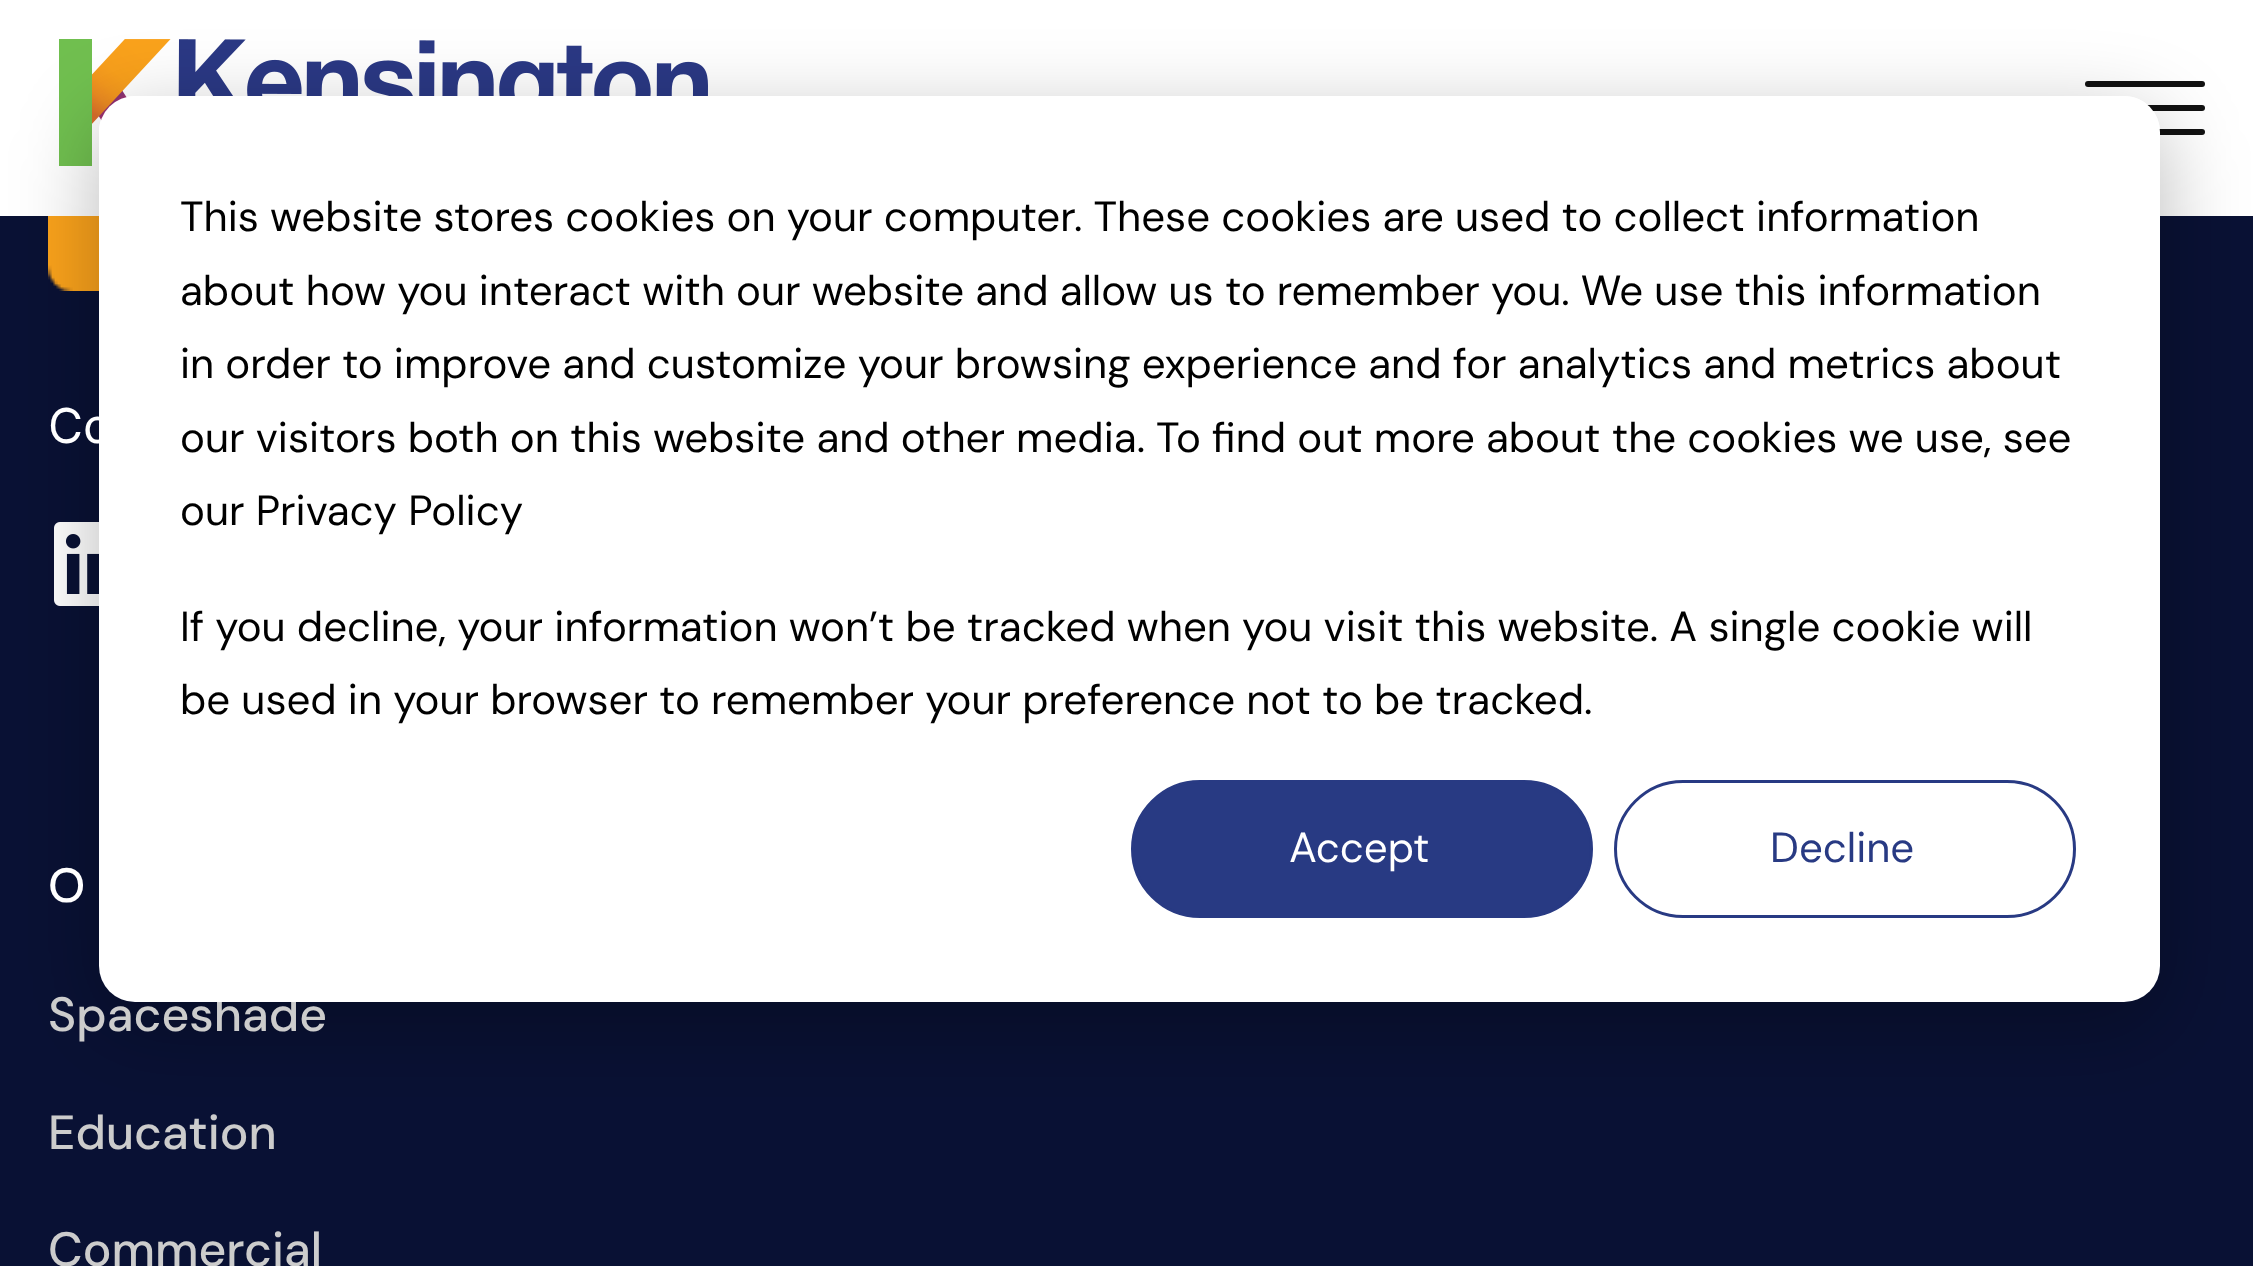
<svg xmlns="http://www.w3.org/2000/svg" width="2253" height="1266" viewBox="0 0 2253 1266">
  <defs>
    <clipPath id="clip1"><path d="M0 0H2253V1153H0ZM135 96H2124C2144 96 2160 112 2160 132V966C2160 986 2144 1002 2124 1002H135C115 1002 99 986 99 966V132C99 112 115 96 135 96Z" clip-rule="evenodd"/></clipPath>
    <filter id="blur1" x="-50%" y="-200%" width="200%" height="500%"><feGaussianBlur stdDeviation="42"/></filter>
  </defs>
  <rect width="100%" height="100%" fill="#091134"/>
  <rect x="0" y="0" width="2253" height="216" fill="#ffffff"/>
  <image x="59" y="39" width="649" height="127" href="img1.png"/>
  <rect x="2085" y="81" width="120" height="6" rx="3" fill="#111111"/>
  <rect x="2085" y="105" width="120" height="6" rx="3" fill="#111111"/>
  <rect x="2085" y="129" width="120" height="6" rx="3" fill="#111111"/>
  <image x="48" y="216" width="51" height="75" href="img2.png"/>
  <image x="54" y="522" width="45" height="84" href="img3.png"/>
  <g clip-path="url(#clip1)">
    <rect x="99" y="120" width="2061" height="906" rx="36" fill="#000000" fill-opacity="0.28" filter="url(#blur1)"/>
  </g>
  <text x="48" y="1031" font-family="DM Sans" font-size="48" font-weight="500" fill="#cccccc">Spaceshade</text>
  <rect x="99" y="96" width="2061" height="906" rx="36" fill="#ffffff"/>
  <text x="180" y="231" font-family="DM Sans" font-size="42" fill="#000000">This website stores cookies on your computer. These cookies are used to collect information</text>
  <text x="180" y="305" font-family="DM Sans" font-size="42" fill="#000000">about how you interact with our website and allow us to remember you. We use this information</text>
  <text x="180" y="378" font-family="DM Sans" font-size="42" fill="#000000">in order to improve and customize your browsing experience and for analytics and metrics about</text>
  <text x="180" y="452" font-family="DM Sans" font-size="42" fill="#000000">our visitors both on this website and other media. To find out more about the cookies we use, see</text>
  <text x="180" y="525" font-family="DM Sans" font-size="42" fill="#000000">our Privacy Policy</text>
  <text x="180" y="641" font-family="DM Sans" font-size="42" fill="#000000">If you decline, your information won’t be tracked when you visit this website. A single cookie will</text>
  <text x="180" y="714" font-family="DM Sans" font-size="42" fill="#000000">be used in your browser to remember your preference not to be tracked.</text>
  <rect x="1132.5" y="781.5" width="459" height="135" rx="67.5" fill="#283a83" stroke="#283a83" stroke-width="3"/>
  <text x="1289" y="862" font-family="DM Sans" font-size="42" fill="#ffffff">Accept</text>
  <rect x="1615.5" y="781.5" width="459" height="135" rx="67.5" fill="none" stroke="#283a83" stroke-width="3"/>
  <text x="1770" y="862" font-family="DM Sans" font-size="42" fill="#283a83">Decline</text>
  <text x="48" y="443" font-family="Inter" font-size="48" fill="#ffffff">Co</text>
  <text x="48" y="902" font-family="DM Sans" font-size="48" font-weight="500" fill="#ffffff">O</text>
  <text x="48" y="1149" font-family="DM Sans" font-size="48" font-weight="500" fill="#cccccc">Education</text>
  <text x="48" y="1266" font-family="DM Sans" font-size="48" font-weight="500" fill="#cccccc">Commercial</text>
</svg>
